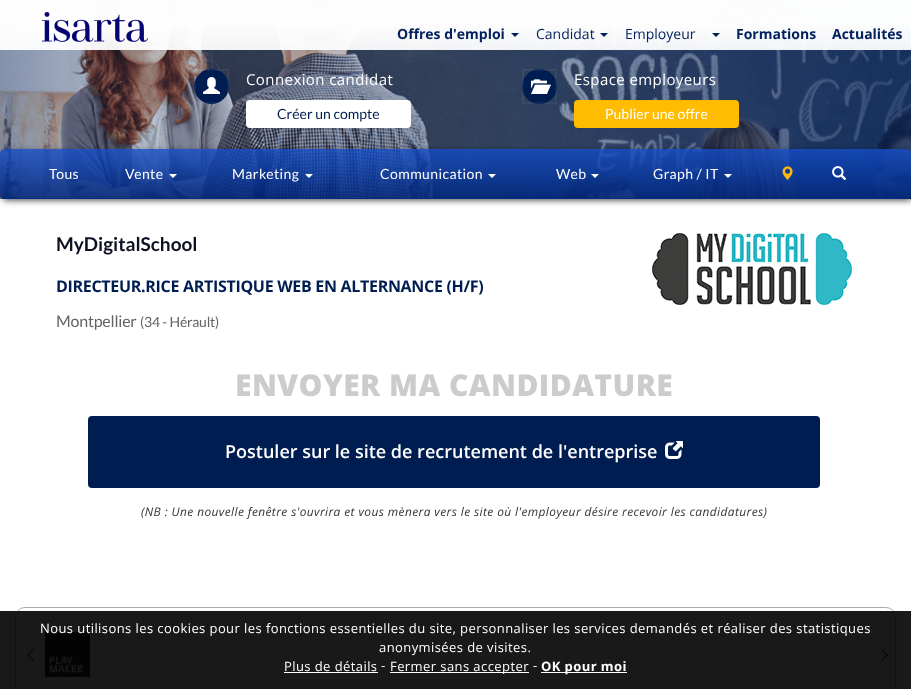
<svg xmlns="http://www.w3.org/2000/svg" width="911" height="689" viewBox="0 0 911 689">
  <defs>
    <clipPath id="clip1"><path d="M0 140H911V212H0ZM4 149H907C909 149 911 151 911 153V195C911 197 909 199 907 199H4C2 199 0 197 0 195V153C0 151 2 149 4 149Z" clip-rule="evenodd"/></clipPath>
    <filter id="blur1" x="-50%" y="-200%" width="200%" height="500%"><feGaussianBlur stdDeviation="3.5"/></filter>
    <clipPath id="clip2"><rect x="0" y="149" width="911" height="50" rx="4"/></clipPath>
    <linearGradient id="g1" gradientUnits="userSpaceOnUse" x1="456" y1="149" x2="456" y2="198"><stop offset="0" stop-color="#144dc8" stop-opacity="0.8"/><stop offset="1" stop-color="#00277b" stop-opacity="0.86"/></linearGradient>
    <linearGradient id="g2" gradientUnits="userSpaceOnUse" x1="456" y1="198" x2="456" y2="247"><stop offset="0" stop-color="#144dc8" stop-opacity="0.8"/><stop offset="1" stop-color="#00277b" stop-opacity="0.86"/></linearGradient>
  </defs>
  <rect width="100%" height="100%" fill="#ffffff"/>
  <image x="0" y="0" width="911" height="199" href="img2.png"/>
  <image x="42" y="12" width="106" height="30" href="img1.png"/>
  <text x="397" y="39" font-family="Open Sans" font-size="14" font-weight="bold" fill="#021f5e">Offres d'emploi</text>
  <path d="M511 33H519L515 37Z" fill="#021f5e"/>
  <text x="536" y="39" font-family="Open Sans" font-size="14" fill="#021f5e">Candidat</text>
  <path d="M600 33H608L604 37Z" fill="#021f5e"/>
  <text x="625" y="39" font-family="Open Sans" font-size="14" fill="#021f5e">Employeur</text>
  <path d="M712 33H720L716 37Z" fill="#021f53"/>
  <text x="736" y="39" font-family="Open Sans" font-size="14" font-weight="bold" fill="#021f5e">Formations</text>
  <text x="832" y="39" font-family="Open Sans" font-size="14" font-weight="bold" fill="#021f5e">Actualités</text>
  <circle cx="211.5" cy="86.5" r="17.5" fill="#001d51"/>
  <rect x="195" y="70" width="33" height="33" fill="none" stroke="#ffffff" stroke-opacity="0.05" stroke-width="2"/>
  <image x="203" y="77" width="17" height="17" href="img3.png"/>
  <text x="246" y="85" font-family="Open Sans" font-size="15" letter-spacing="0.42" fill="#ffffff">Connexion candidat</text>
  <rect x="246" y="100" width="165" height="28" rx="4" fill="#ffffff"/>
  <text x="277" y="119" font-family="Lato" font-size="14" fill="#001d51">Créer un compte</text>
  <circle cx="539.5" cy="86.5" r="17.5" fill="#001d51"/>
  <rect x="523" y="70" width="33" height="33" fill="none" stroke="#ffffff" stroke-opacity="0.05" stroke-width="2"/>
  <image x="531" y="79" width="20" height="15" href="img4.png"/>
  <text x="574" y="85" font-family="Open Sans" font-size="15" letter-spacing="0.42" fill="#ffffff">Espace employeurs</text>
  <rect x="574" y="100" width="165" height="28" rx="4" fill="#ffbc00"/>
  <text x="605" y="119" font-family="Lato" font-size="14" fill="#ffffff">Publier une offre</text>
  <g clip-path="url(#clip1)">
    <rect x="3" y="152" width="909" height="48" rx="3" fill="#000000" fill-opacity="0.75" filter="url(#blur1)"/>
  </g>
  <g clip-path="url(#clip2)">
    <path d="M4 149H907C909 149 911 151 911 153V198H0V153C0 151 2 149 4 149Z" fill="url(#g1)"/>
    <rect x="0" y="198" width="911" height="1" fill="url(#g2)"/>
  </g>
  <rect x="2" y="198" width="907" height="1" fill="#00277b" fill-opacity="0.86"/>
  <text x="49" y="179" font-family="Lato" font-size="14" letter-spacing="0.42" fill="#ffffff">Tous</text>
  <text x="125" y="179" font-family="Lato" font-size="14" letter-spacing="0.42" fill="#ffffff">Vente</text>
  <path d="M169 174H177L173 178Z" fill="#ffffff"/>
  <text x="232" y="179" font-family="Lato" font-size="14" letter-spacing="0.42" fill="#ffffff">Marketing</text>
  <path d="M305 174H313L309 178Z" fill="#ffffff"/>
  <text x="380" y="179" font-family="Lato" font-size="14" letter-spacing="0.42" fill="#ffffff">Communication</text>
  <path d="M488 174H496L492 178Z" fill="#ffffff"/>
  <text x="556" y="179" font-family="Lato" font-size="14" letter-spacing="0.42" fill="#ffffff">Web</text>
  <path d="M591 174H599L595 178Z" fill="#ffffff"/>
  <text x="653" y="179" font-family="Lato" font-size="14" letter-spacing="0.42" fill="#ffffff">Graph / IT</text>
  <path d="M724 174H732L728 178Z" fill="#ffffff"/>
  <image x="782" y="166" width="11" height="14" href="img5.png"/>
  <image x="832" y="166" width="15" height="14" href="img6.png"/>
  <text x="56" y="251" font-family="Lato" font-size="19" font-weight="bold" fill="#0e1123">MyDigitalSchool</text>
  <image x="652" y="233" width="200" height="72" href="img7.png"/>
  <text x="56" y="292" font-family="Open Sans" font-size="16" font-weight="bold" letter-spacing="-0.3" fill="#001d51">DIRECTEUR.RICE ARTISTIQUE WEB EN ALTERNANCE (H/F)</text>
  <text x="56" y="327" font-family="Lato" font-size="16" letter-spacing="-0.2" fill="#646464">Montpellier</text>
  <text x="140" y="327" font-family="Lato" font-size="14" letter-spacing="-0.2" fill="#646464">(34 - Hérault)</text>
  <text x="235" y="396" font-family="Open Sans" font-size="30" font-weight="800" letter-spacing="0.42" fill="#cccccc">ENVOYER MA CANDIDATURE</text>
  <rect x="88" y="416" width="732" height="72" rx="4" fill="#001d51"/>
  <text x="225" y="458" font-family="Open Sans" font-size="18" font-weight="600" fill="#ffffff">Postuler sur le site de recrutement de l'entreprise</text>
  <image x="665" y="441" width="18" height="18" href="img8.png"/>
  <text x="141" y="516" font-family="Open Sans" font-size="11.9" font-style="italic" letter-spacing="0.42" fill="#333333">(NB : Une nouvelle fenêtre s'ouvrira et vous mènera vers le site où l'employeur désire recevoir les candidatures)</text>
  <rect x="15.5" y="607.5" width="880" height="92" rx="9.5" fill="none" stroke="#aaaaaa"/>
  <image x="27" y="649" width="7" height="12" href="img9.png"/>
  <image x="45" y="631" width="45" height="46" href="img10.png"/>
  <image x="881" y="649" width="7" height="12" href="img11.png"/>
  <rect x="0" y="611" width="911" height="78" fill="#000000" fill-opacity="0.9"/>
  <text x="40" y="633" font-family="Open Sans" font-size="13" letter-spacing="0.42" fill="#ffffff">Nous utilisons les cookies pour les fonctions essentielles du site, personnaliser les services demandés et réaliser des statistiques</text>
  <text x="379" y="652" font-family="Open Sans" font-size="13" letter-spacing="0.42" fill="#ffffff">anonymisées de visites.</text>
  <text x="284" y="671" font-family="Open Sans" font-size="13" letter-spacing="0.42" fill="#ffffff">Plus de détails</text>
  <rect x="284" y="672" width="94" height="1" fill="#ffffff"/>
  <text x="381" y="670" font-family="Open Sans" font-size="13" letter-spacing="0.42" fill="#ffffff">-</text>
  <rect x="390" y="672" width="139" height="1" fill="#ffffff"/>
  <text x="390" y="671" font-family="Open Sans" font-size="13" letter-spacing="0.42" fill="#ffffff">Fermer sans accepter</text>
  <text x="533" y="670" font-family="Open Sans" font-size="13" letter-spacing="0.42" fill="#ffffff">-</text>
  <rect x="541" y="672" width="86" height="1" fill="#ffffff"/>
  <text x="541" y="671" font-family="Open Sans" font-size="13" font-weight="bold" letter-spacing="0.42" fill="#ffffff">OK pour moi</text>
</svg>
